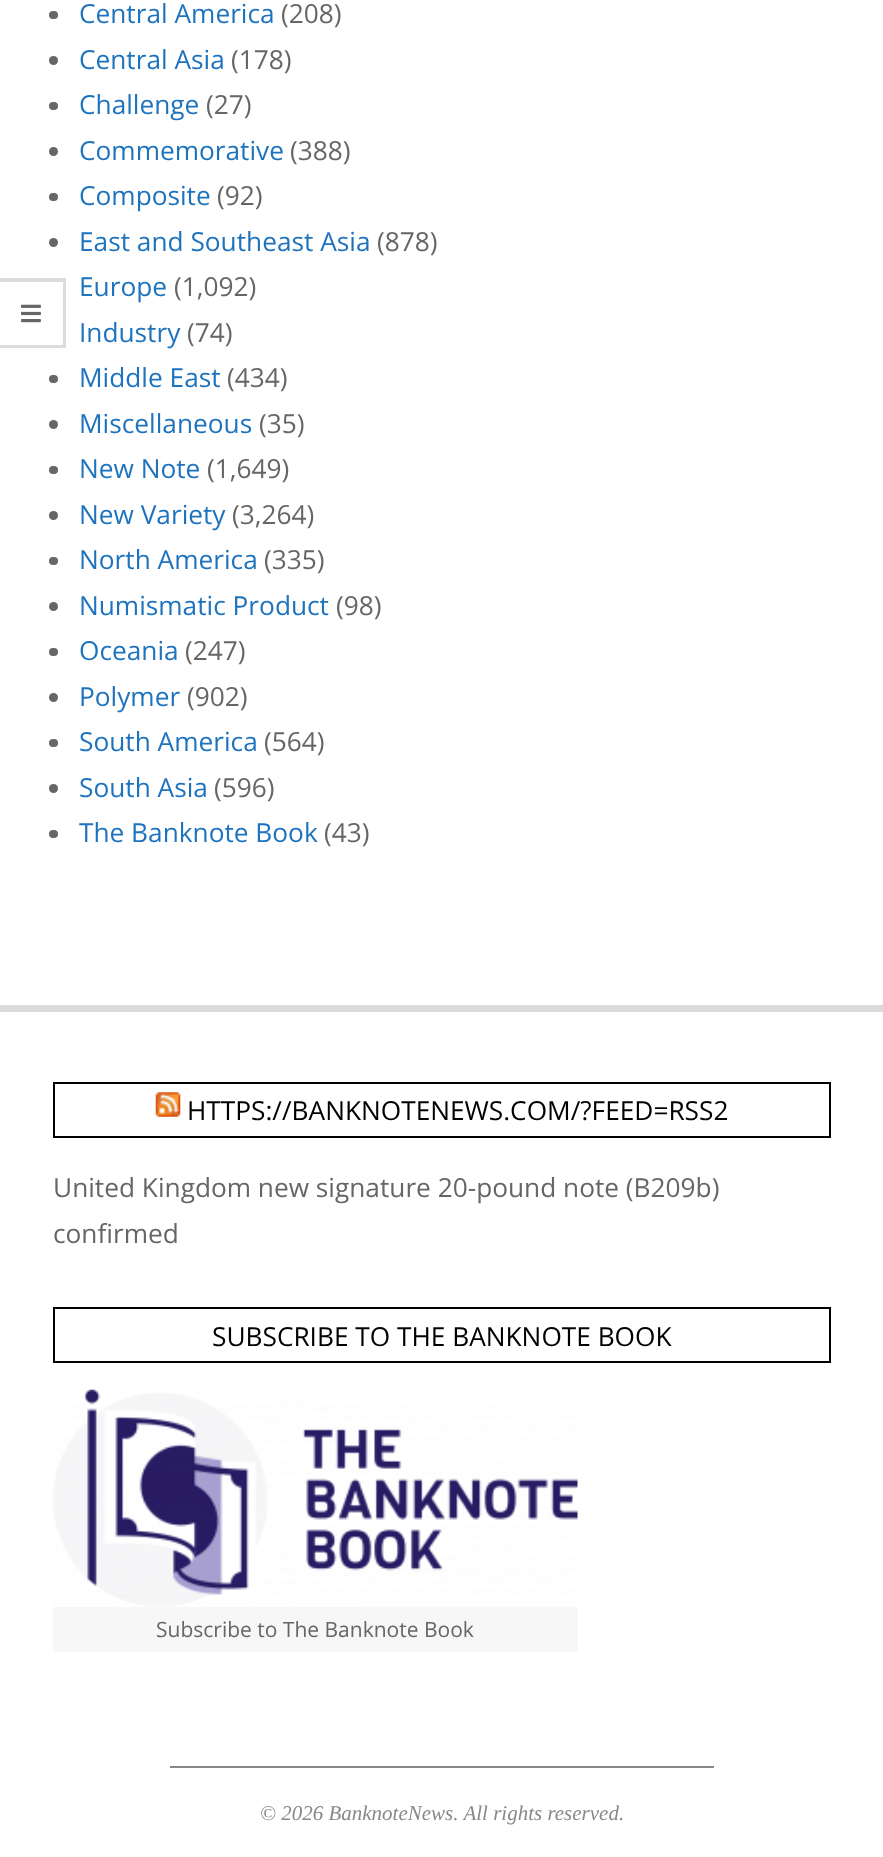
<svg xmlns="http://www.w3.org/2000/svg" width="883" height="1857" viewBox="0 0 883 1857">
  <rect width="100%" height="100%" fill="#ffffff"/>
  <path d="M0 278H66L63 282H0Z" fill="#dbdbdb"/>
  <path d="M66 278V348L63 345V282Z" fill="#000000" fill-opacity="0.14"/>
  <path d="M66 348H0V345H63Z" fill="#000000" fill-opacity="0.14"/>
  <image x="21" y="304" width="20" height="19" href="img1.png"/>
  <rect x="49" y="11" width="9" height="8" rx="4" fill="#666666"/>
  <text x="79" y="23" font-family="Open Sans" font-size="26.25" fill="#1e73be">Central America</text>
  <text x="281" y="23" font-family="Open Sans" font-size="26.25" fill="#666666">(208)</text>
  <circle cx="53.5" cy="60.5" r="4.5" fill="#666666"/>
  <text x="79" y="69" font-family="Open Sans" font-size="26.25" fill="#1e73be">Central Asia</text>
  <text x="231" y="69" font-family="Open Sans" font-size="26.25" fill="#666666">(178)</text>
  <rect x="49" y="102" width="9" height="8" rx="4" fill="#666666"/>
  <text x="79" y="114" font-family="Open Sans" font-size="26.25" fill="#1e73be">Challenge</text>
  <text x="206" y="114" font-family="Open Sans" font-size="26.25" fill="#666666">(27)</text>
  <circle cx="53.5" cy="151.5" r="4.5" fill="#666666"/>
  <text x="79" y="160" font-family="Open Sans" font-size="26.25" fill="#1e73be">Commemorative</text>
  <text x="290" y="160" font-family="Open Sans" font-size="26.25" fill="#666666">(388)</text>
  <rect x="49" y="193" width="9" height="8" rx="4" fill="#666666"/>
  <text x="79" y="205" font-family="Open Sans" font-size="26.25" fill="#1e73be">Composite</text>
  <text x="217" y="205" font-family="Open Sans" font-size="26.25" fill="#666666">(92)</text>
  <circle cx="53.5" cy="242.5" r="4.5" fill="#666666"/>
  <text x="79" y="251" font-family="Open Sans" font-size="26.25" fill="#1e73be">East and Southeast Asia</text>
  <text x="377" y="251" font-family="Open Sans" font-size="26.25" fill="#666666">(878)</text>
  <text x="79" y="296" font-family="Open Sans" font-size="26.25" fill="#1e73be">Europe</text>
  <text x="174" y="296" font-family="Open Sans" font-size="26.25" fill="#666666">(1,092)</text>
  <text x="79" y="342" font-family="Open Sans" font-size="26.25" fill="#1e73be">Industry</text>
  <text x="187" y="342" font-family="Open Sans" font-size="26.25" fill="#666666">(74)</text>
  <rect x="49" y="375" width="9" height="8" rx="4" fill="#666666"/>
  <text x="79" y="387" font-family="Open Sans" font-size="26.25" fill="#1e73be">Middle East</text>
  <text x="227" y="387" font-family="Open Sans" font-size="26.25" fill="#666666">(434)</text>
  <circle cx="53.5" cy="424.5" r="4.5" fill="#666666"/>
  <text x="79" y="433" font-family="Open Sans" font-size="26.25" fill="#1e73be">Miscellaneous</text>
  <text x="259" y="433" font-family="Open Sans" font-size="26.25" fill="#666666">(35)</text>
  <rect x="49" y="466" width="9" height="8" rx="4" fill="#666666"/>
  <text x="79" y="478" font-family="Open Sans" font-size="26.25" fill="#1e73be">New Note</text>
  <text x="207" y="478" font-family="Open Sans" font-size="26.25" fill="#666666">(1,649)</text>
  <circle cx="53.5" cy="515.5" r="4.5" fill="#666666"/>
  <text x="79" y="524" font-family="Open Sans" font-size="26.25" fill="#1e73be">New Variety</text>
  <text x="232" y="524" font-family="Open Sans" font-size="26.25" fill="#666666">(3,264)</text>
  <rect x="49" y="557" width="9" height="8" rx="4" fill="#666666"/>
  <text x="79" y="569" font-family="Open Sans" font-size="26.25" fill="#1e73be">North America</text>
  <text x="264" y="569" font-family="Open Sans" font-size="26.25" fill="#666666">(335)</text>
  <circle cx="53.5" cy="606.5" r="4.5" fill="#666666"/>
  <text x="79" y="615" font-family="Open Sans" font-size="26.25" fill="#1e73be">Numismatic Product</text>
  <text x="336" y="615" font-family="Open Sans" font-size="26.25" fill="#666666">(98)</text>
  <rect x="49" y="648" width="9" height="8" rx="4" fill="#666666"/>
  <text x="79" y="660" font-family="Open Sans" font-size="26.25" fill="#1e73be">Oceania</text>
  <text x="185" y="660" font-family="Open Sans" font-size="26.25" fill="#666666">(247)</text>
  <circle cx="53.5" cy="697.5" r="4.5" fill="#666666"/>
  <text x="79" y="706" font-family="Open Sans" font-size="26.25" fill="#1e73be">Polymer</text>
  <text x="187" y="706" font-family="Open Sans" font-size="26.25" fill="#666666">(902)</text>
  <rect x="49" y="739" width="9" height="8" rx="4" fill="#666666"/>
  <text x="79" y="751" font-family="Open Sans" font-size="26.25" fill="#1e73be">South America</text>
  <text x="264" y="751" font-family="Open Sans" font-size="26.25" fill="#666666">(564)</text>
  <circle cx="53.5" cy="788.5" r="4.5" fill="#666666"/>
  <text x="79" y="797" font-family="Open Sans" font-size="26.25" fill="#1e73be">South Asia</text>
  <text x="214" y="797" font-family="Open Sans" font-size="26.25" fill="#666666">(596)</text>
  <rect x="49" y="830" width="9" height="8" rx="4" fill="#666666"/>
  <text x="79" y="842" font-family="Open Sans" font-size="26.25" fill="#1e73be">The Banknote Book</text>
  <text x="324" y="842" font-family="Open Sans" font-size="26.25" fill="#666666">(43)</text>
  <rect x="0" y="1005" width="883" height="7" fill="#dbdbdb"/>
  <rect x="54" y="1083" width="776" height="54" fill="none" stroke="#000000" stroke-width="2"/>
  <image x="155" y="1092" width="26" height="25" href="img2.png"/>
  <text x="187" y="1120" font-family="Open Sans" font-size="26.25" fill="#000000">HTTPS://BANKNOTENEWS.COM/?FEED=RSS2</text>
  <text x="53" y="1197" font-family="Open Sans" font-size="26.25" fill="#666666">United Kingdom new signature 20-pound note (B209b)</text>
  <text x="53" y="1243" font-family="Open Sans" font-size="26.25" fill="#666666">confirmed</text>
  <rect x="54" y="1308" width="776" height="54" fill="none" stroke="#000000" stroke-width="2"/>
  <text x="212" y="1346" font-family="Open Sans" font-size="26.25" fill="#000000">SUBSCRIBE TO THE BANKNOTE BOOK</text>
  <image x="52" y="1389" width="526" height="218" href="img3.png"/>
  <rect x="53" y="1607" width="525" height="45" fill="#f7f7f7"/>
  <text x="156" y="1637" font-family="Open Sans" font-size="21" fill="#666666">Subscribe to The Banknote Book</text>
  <rect x="170" y="1766" width="544" height="2" fill="#888888"/>
  <text x="260" y="1820" font-family="Liberation Serif" font-size="21" font-style="italic" fill="#888888">© 2026 BanknoteNews. All rights reserved.</text>
</svg>
